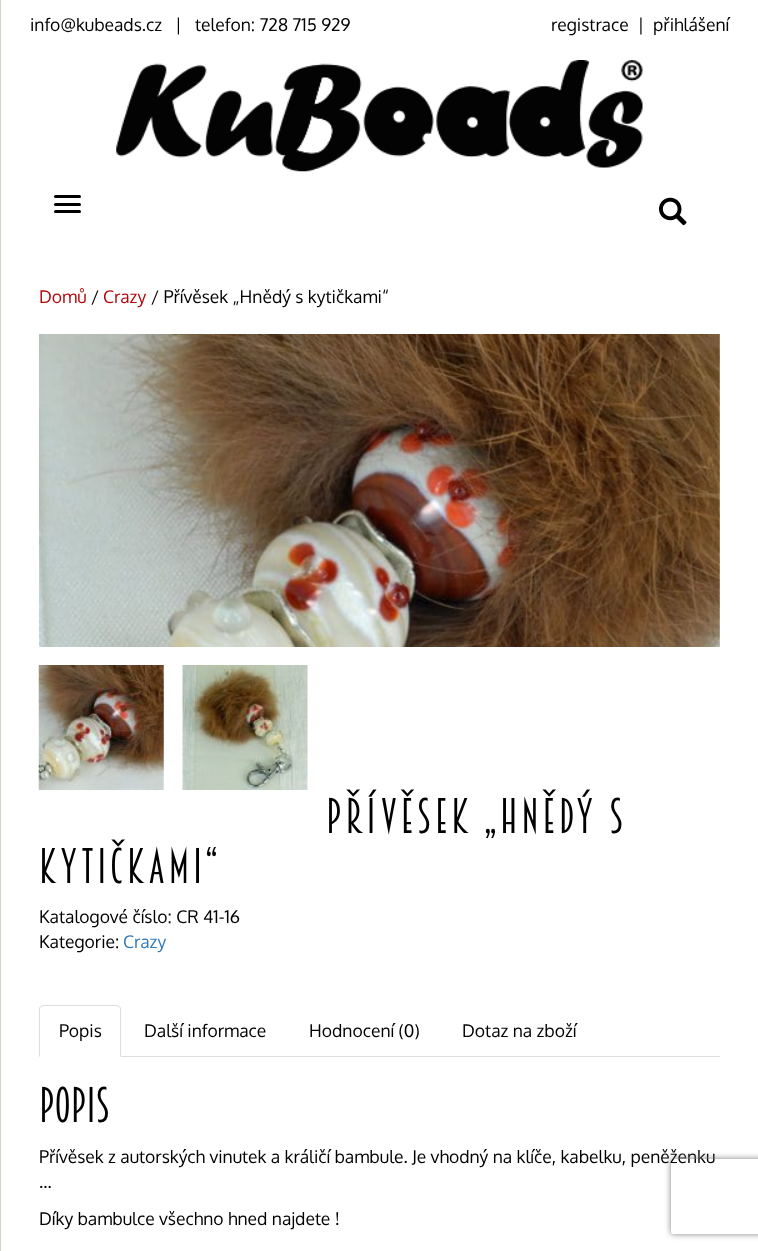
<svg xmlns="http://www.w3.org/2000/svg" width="758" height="1251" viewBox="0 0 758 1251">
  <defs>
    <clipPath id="clip1"><path d="M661 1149H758V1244H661ZM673.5 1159H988.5C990 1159 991 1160 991 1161.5V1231.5C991 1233 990 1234 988.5 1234H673.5C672 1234 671 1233 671 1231.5V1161.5C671 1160 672 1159 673.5 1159Z" clip-rule="evenodd"/></clipPath>
    <filter id="blur1" x="-50%" y="-200%" width="200%" height="500%"><feGaussianBlur stdDeviation="3"/></filter>
  </defs>
  <rect width="100%" height="100%" fill="#ffffff"/>
  <rect x="0" y="0" width="1" height="1251" fill="#cdd6c3"/>
  <text x="30" y="31" font-family="Oxygen" font-size="17.5" fill="#000000">info@kubeads.cz</text>
  <text x="175" y="31" font-family="Oxygen" font-size="17.5" fill="#000000">|</text>
  <text x="195" y="31" font-family="Oxygen" font-size="17.5" fill="#000000">telefon: 728 715 929</text>
  <text x="551" y="31" font-family="Oxygen" font-size="17.5" fill="#000000" xml:space="preserve">registrace  |  přihlášení</text>
  <image x="116" y="60" width="527" height="112" href="img1.png"/>
  <rect x="54" y="195" width="27" height="3" rx="1.5" fill="#000000"/>
  <rect x="54" y="203" width="27" height="3" rx="1.5" fill="#000000"/>
  <rect x="54" y="210" width="27" height="3" rx="1.5" fill="#000000"/>
  <image x="659" y="197" width="28" height="29" href="img2.png"/>
  <text x="39" y="303" font-family="Oxygen" font-size="17.5" fill="#b2090c">Domů</text>
  <text x="91" y="303" font-family="Oxygen" font-size="17.5" fill="#000000">/</text>
  <text x="103" y="303" font-family="Oxygen" font-size="17.5" fill="#b2090c">Crazy</text>
  <text x="151" y="303" font-family="Oxygen" font-size="17.5" fill="#000000">/ Přívěsek „Hnědý s kytičkami“</text>
  <image x="39" y="334" width="681" height="313" href="img3.png"/>
  <image x="38" y="665" width="126" height="125" href="img4.png"/>
  <image x="182" y="665" width="126" height="125" href="img5.png"/>
  <text x="326" y="833" font-family="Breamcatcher" font-size="45" letter-spacing="3.75" fill="#000000">PŘÍVĚSEK „HNĚDÝ S</text>
  <text x="39" y="883" font-family="Breamcatcher" font-size="45" letter-spacing="3.75" fill="#000000">KYTIČKAMI“</text>
  <text x="39" y="923" font-family="Oxygen" font-size="17.5" fill="#000000">Katalogové číslo: CR 41-16</text>
  <text x="39" y="948" font-family="Oxygen" font-size="17.5" fill="#000000">Kategorie:</text>
  <text x="123" y="948" font-family="Oxygen" font-size="17.5" fill="#337ab7">Crazy</text>
  <rect x="121" y="1056" width="599" height="1" fill="#dddddd"/>
  <path d="M44 1005C42 1005 41 1006 40 1007H41L44 1006H116L119 1007H120C119 1006 118 1005 116 1005Z" fill="#dddddd"/>
  <path d="M120 1007C121 1007 121 1009 121 1010V1057L120 1056V1010C120 1009 120 1008 119 1007Z" fill="#dddddd"/>
  <path d="M40 1007C39 1007 39 1009 39 1010V1057L40 1056V1010C40 1009 40 1008 41 1007Z" fill="#dddddd"/>
  <text x="59" y="1037" font-family="Oxygen" font-size="17.5" fill="#000000">Popis</text>
  <text x="144" y="1037" font-family="Oxygen" font-size="17.5" fill="#000000">Další informace</text>
  <text x="309" y="1037" font-family="Oxygen" font-size="17.5" fill="#000000">Hodnocení (0)</text>
  <text x="462" y="1037" font-family="Oxygen" font-size="17.5" fill="#000000">Dotaz na zboží</text>
  <text x="39" y="1122" font-family="Breamcatcher" font-size="45" fill="#000000">Popis</text>
  <text x="39" y="1163" font-family="Oxygen" font-size="17.5" fill="#000000">Přívěsek z autorských vinutek a králičí bambule. Je vhodný na klíče, kabelku, peněženku</text>
  <text x="39" y="1188" font-family="Oxygen" font-size="17.5" fill="#000000">…</text>
  <text x="39" y="1225" font-family="Oxygen" font-size="17.5" fill="#000000">Díky bambulce všechno hned najdete !</text>
  <g clip-path="url(#clip1)">
    <rect x="671" y="1159" width="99" height="75" rx="2.5" fill="#808080" filter="url(#blur1)"/>
  </g>
</svg>
